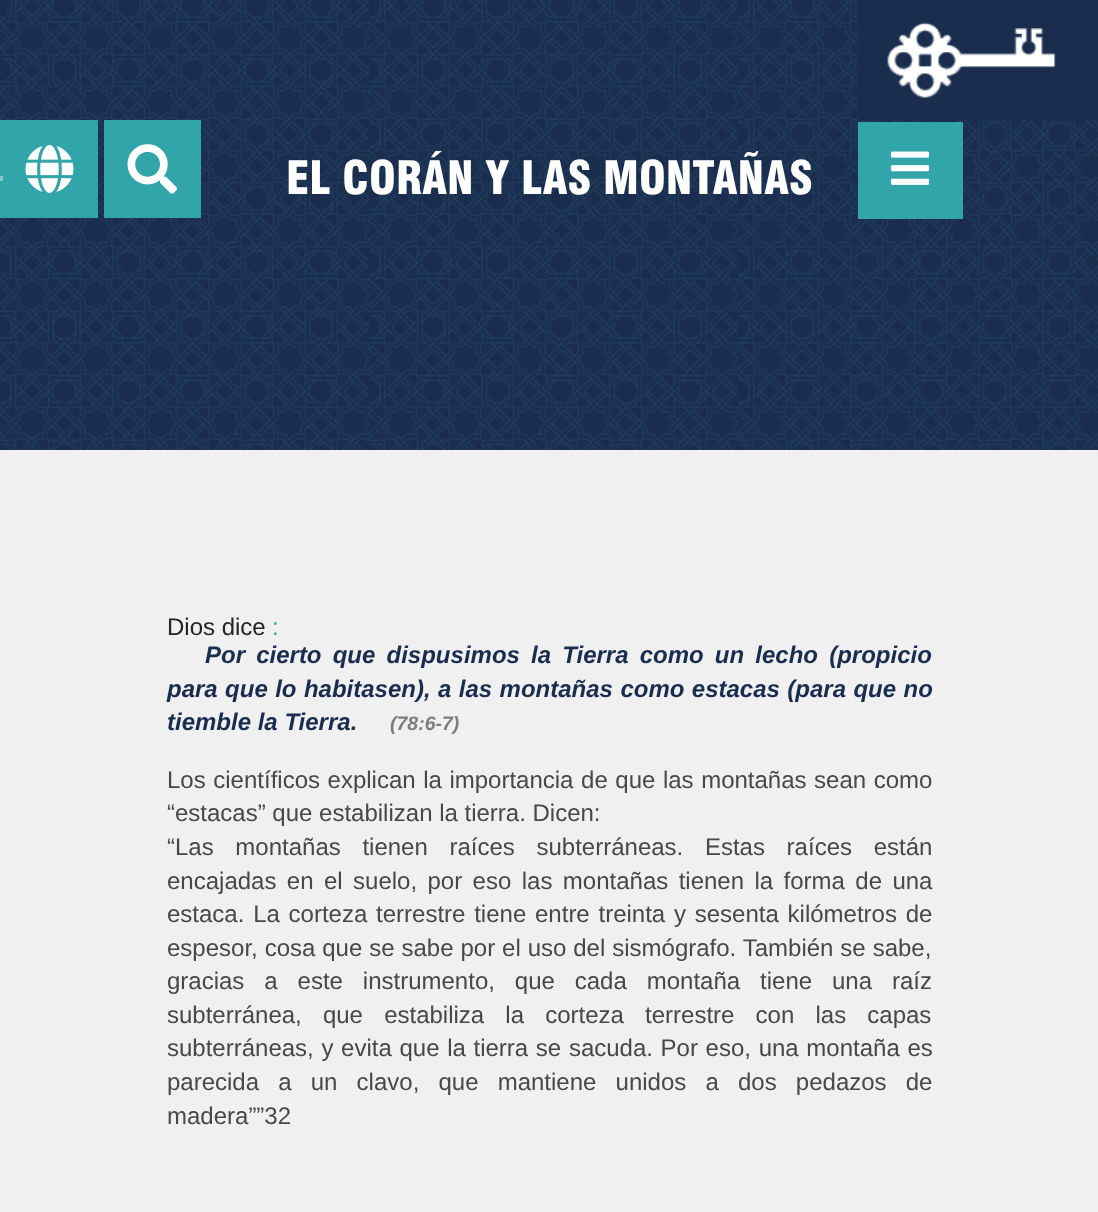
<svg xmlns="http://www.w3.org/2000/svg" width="1098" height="1212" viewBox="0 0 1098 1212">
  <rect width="100%" height="100%" fill="#f0f0f0"/>
  <image x="0" y="0" width="1098" height="450" href="img5.png"/>
  <rect x="858" y="0" width="240" height="120" fill="#1a2d4e"/>
  <image x="887" y="22" width="169" height="76" href="img1.png"/>
  <rect x="0" y="120" width="98" height="98" fill="#32a5aa"/>
  <image x="25" y="145" width="49" height="48" href="img2.png"/>
  <rect x="0" y="176" width="3" height="5" fill="#84c9cc"/>
  <rect x="104" y="120" width="97" height="98" fill="#32a5aa"/>
  <image x="127" y="144" width="50" height="50" href="img3.png"/>
  <rect x="858" y="122" width="105" height="97" fill="#32a5aa"/>
  <image x="891" y="151" width="39" height="34" href="img4.png"/>
  <text x="286" y="194" font-family="'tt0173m'" font-size="45" fill="#ffffff">EL CORÁN Y LAS MONTAÑAS</text>
  <text x="167" y="635" font-family="Liberation Sans" font-size="24" fill="#212529">Dios dice</text>
  <text x="272" y="635" font-family="Liberation Sans" font-size="24" fill="#32a5aa">:</text>
  <text x="205" y="663" word-spacing="4.5" font-family="Liberation Sans" font-size="24" font-weight="bold" font-style="italic" fill="#1a2d4e">Por cierto que dispusimos la Tierra como un lecho (propicio</text>
  <text x="167" y="697" word-spacing="0.75" font-family="Liberation Sans" font-size="24" font-weight="bold" font-style="italic" fill="#1a2d4e">para que lo habitasen), a las montañas como estacas (para que no</text>
  <text x="167" y="730" font-family="Liberation Sans" font-size="24" font-weight="bold" font-style="italic" fill="#1a2d4e">tiemble la Tierra.</text>
  <text x="390" y="730" font-family="Liberation Sans" font-size="19.5" font-weight="bold" font-style="italic" fill="#7d7d7d">(78:6-7)</text>
  <text x="167" y="788" word-spacing="0.9" font-family="Liberation Sans" font-size="24" fill="#484848">Los científicos explican la importancia de que las montañas sean como</text>
  <text x="167" y="821" font-family="Liberation Sans" font-size="24" fill="#484848">“estacas” que estabilizan la tierra. Dicen:</text>
  <text x="167" y="855" word-spacing="15" font-family="Liberation Sans" font-size="24" fill="#484848">“Las montañas tienen raíces subterráneas. Estas raíces están</text>
  <text x="167" y="889" word-spacing="3.75" font-family="Liberation Sans" font-size="24" fill="#484848">encajadas en el suelo, por eso las montañas tienen la forma de una</text>
  <text x="167" y="922" word-spacing="2.1" font-family="Liberation Sans" font-size="24" fill="#484848">estaca. La corteza terrestre tiene entre treinta y sesenta kilómetros de</text>
  <text x="167" y="956" word-spacing="0.25" font-family="Liberation Sans" font-size="24" fill="#484848">espesor, cosa que se sabe por el uso del sismógrafo. También se sabe,</text>
  <text x="167" y="989" word-spacing="13.25" font-family="Liberation Sans" font-size="24" fill="#484848">gracias a este instrumento, que cada montaña tiene una raíz</text>
  <text x="167" y="1023" word-spacing="14.5" font-family="Liberation Sans" font-size="24" fill="#484848">subterránea, que estabiliza la corteza terrestre con las capas</text>
  <text x="167" y="1056" word-spacing="1" font-family="Liberation Sans" font-size="24" fill="#484848">subterráneas, y evita que la tierra se sacuda. Por eso, una montaña es</text>
  <text x="167" y="1090" word-spacing="12.5" font-family="Liberation Sans" font-size="24" fill="#484848">parecida a un clavo, que mantiene unidos a dos pedazos de</text>
  <text x="167" y="1124" font-family="Liberation Sans" font-size="24" fill="#484848">madera””32</text>
</svg>
